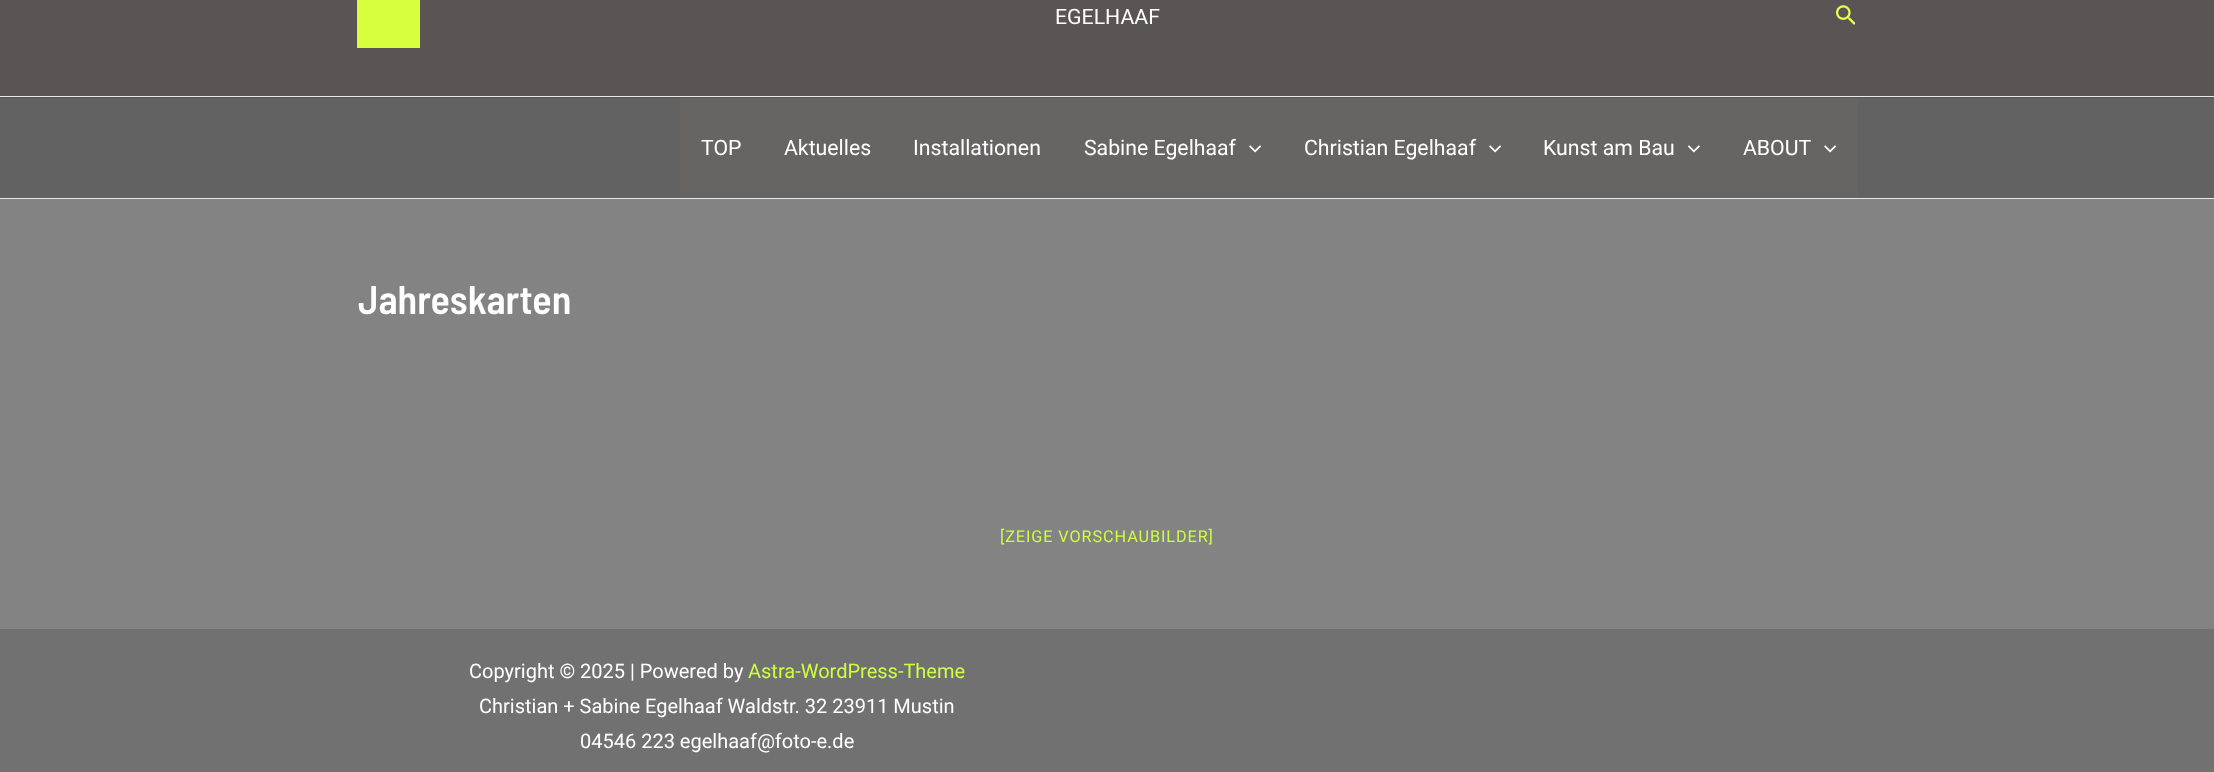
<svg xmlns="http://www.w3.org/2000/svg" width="2214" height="772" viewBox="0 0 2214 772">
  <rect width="100%" height="100%" fill="#838383"/>
  <rect x="0" y="0" width="2214" height="98" fill="#5a5555"/>
  <rect x="0" y="96" width="2214" height="1" fill="#eaeaea"/>
  <rect x="357" y="0" width="63" height="48" fill="#d8ff3d"/>
  <text x="1055" y="24" font-family="Roboto" font-size="21.25" fill="#ffffff">EGELHAAF</text>
  <image x="1836" y="5" width="19" height="20" href="img1.png"/>
  <rect x="0" y="98" width="2214" height="100" fill="#626262"/>
  <rect x="0" y="198" width="2214" height="1" fill="#eaeaea"/>
  <rect x="680" y="98" width="1178" height="100" fill="#676464"/>
  <text x="701" y="155" font-family="Roboto" font-size="21.25" fill="#ffffff">TOP</text>
  <text x="784" y="155" font-family="Roboto" font-size="21.25" fill="#ffffff">Aktuelles</text>
  <text x="913" y="155" font-family="Roboto" font-size="21.25" fill="#ffffff">Installationen</text>
  <text x="1084" y="155" font-family="Roboto" font-size="21.25" fill="#ffffff">Sabine Egelhaaf</text>
  <image x="1249" y="145" width="12" height="8" href="img2.png"/>
  <text x="1304" y="155" font-family="Roboto" font-size="21.25" fill="#ffffff">Christian Egelhaaf</text>
  <image x="1489" y="145" width="12" height="8" href="img2.png"/>
  <text x="1543" y="155" font-family="Roboto" font-size="21.25" fill="#ffffff">Kunst am Bau</text>
  <image x="1688" y="145" width="12" height="8" href="img3.png"/>
  <text x="1743" y="155" font-family="Roboto" font-size="21.25" fill="#ffffff">ABOUT</text>
  <image x="1824" y="145" width="12" height="8" href="img2.png"/>
  <text x="358" y="314" font-family="Barlow Semi Condensed" font-size="40" font-weight="600" fill="#ffffff">Jahreskarten</text>
  <text x="1000" y="542" font-family="Roboto" font-size="16.25" letter-spacing="0.9" fill="#ccfe42">[ZEIGE VORSCHAUBILDER]</text>
  <rect x="0" y="629" width="2214" height="143" fill="#717171"/>
  <text x="469" y="678" font-family="Roboto" font-size="20" fill="#ffffff">Copyright © 2025 | Powered by</text>
  <text x="748" y="678" font-family="Roboto" font-size="20" fill="#ccfe42">Astra-WordPress-Theme</text>
  <text x="479" y="713" font-family="Roboto" font-size="20" fill="#ffffff">Christian + Sabine Egelhaaf Waldstr. 32 23911 Mustin</text>
  <text x="580" y="748" font-family="Roboto" font-size="20" fill="#ffffff">04546 223 egelhaaf@foto-e.de</text>
</svg>
